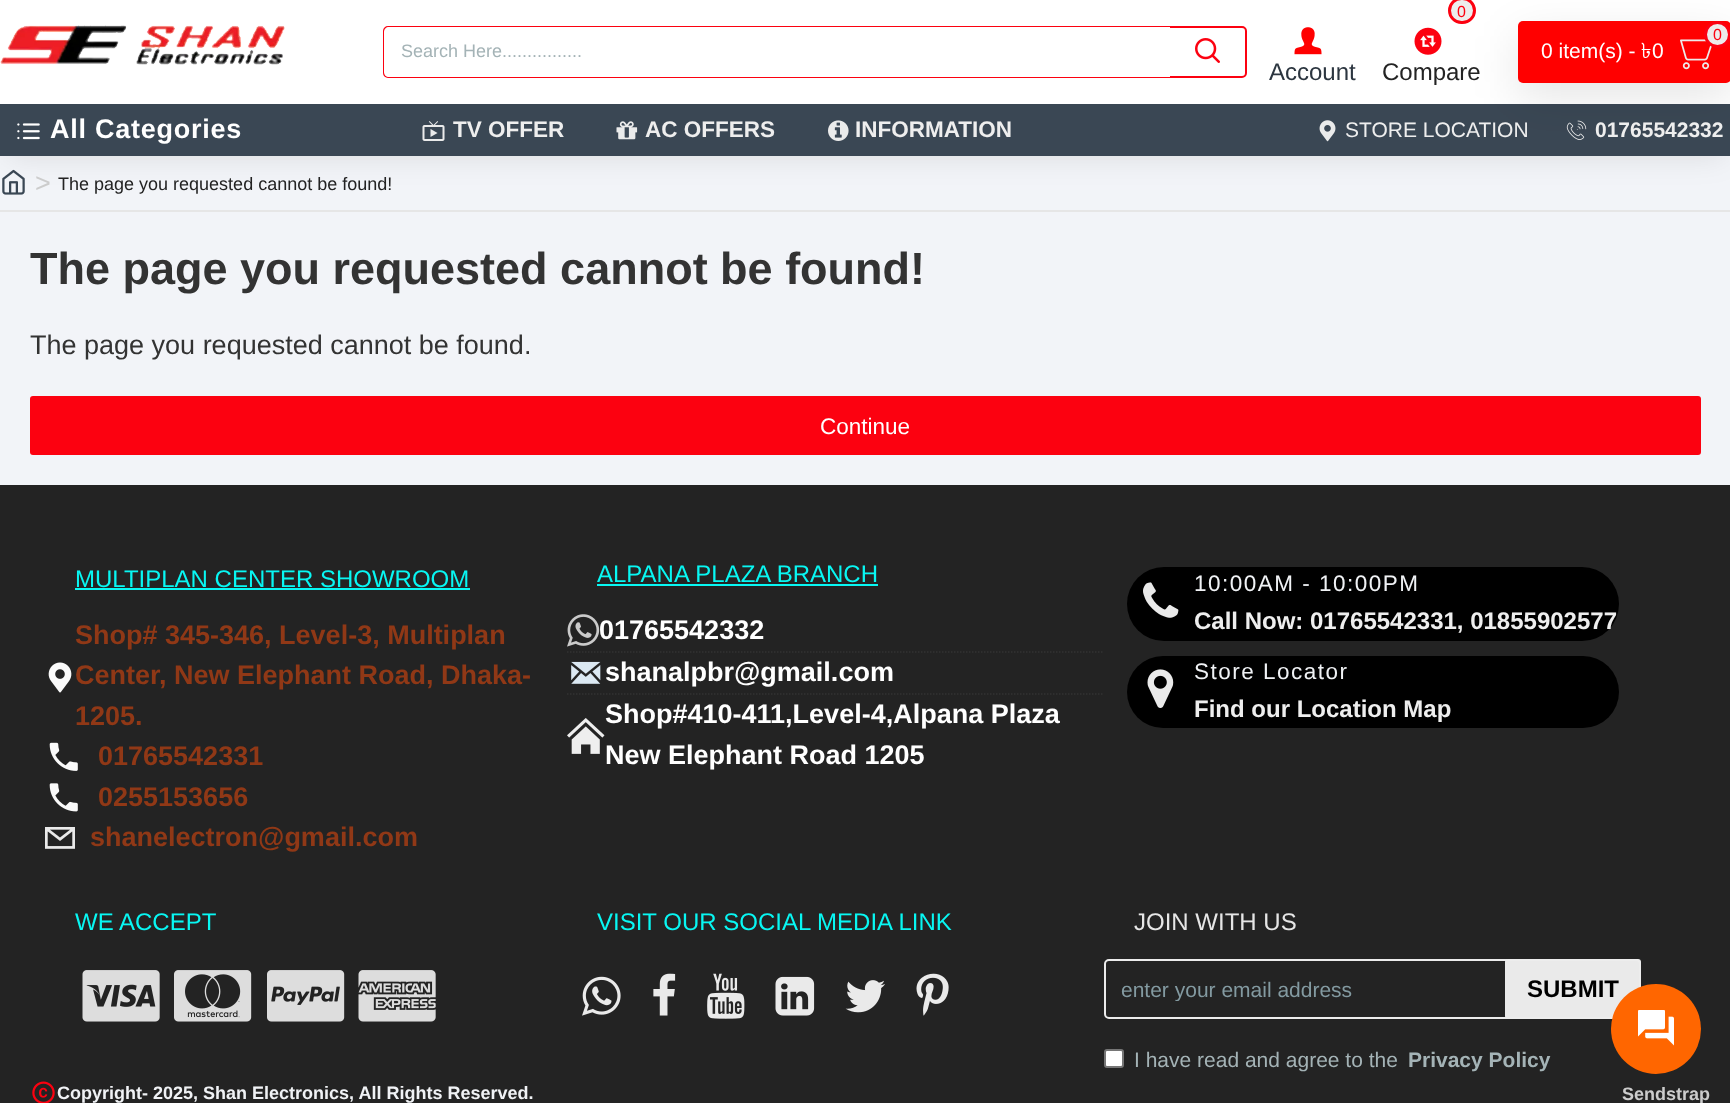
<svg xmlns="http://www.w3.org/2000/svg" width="1730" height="1103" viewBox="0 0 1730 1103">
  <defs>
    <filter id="blur1" x="-50%" y="-200%" width="200%" height="500%"><feGaussianBlur stdDeviation="15"/></filter>
    <filter id="blur2" x="-50%" y="-200%" width="200%" height="500%"><feGaussianBlur stdDeviation="22.5"/></filter>
    <clipPath id="clip1"><rect x="1121" y="977" width="504" height="24"/></clipPath>
  </defs>
  <rect width="100%" height="100%" fill="#f2f4f8"/>
  <image x="2" y="169" width="23" height="26" href="img12.png"/>
  <rect x="8" y="14" width="1716" height="142" fill="#000000" fill-opacity="0.1" filter="url(#blur1)"/>
  <rect x="0" y="0" width="1730" height="104" fill="#ffffff"/>
  <image x="0" y="25" width="285" height="40" href="img1.png"/>
  <rect x="384" y="27" width="862" height="50" rx="4" fill="none" stroke="#fc0110" stroke-width="2"/>
  <path d="M389 27H1170V77H389C386 77 384 75 384 72V32C384 29 386 27 389 27Z" fill="#ffffff"/>
  <text x="401" y="57" font-family="Liberation Sans" font-size="18" fill="#a4b3b6">Search Here................</text>
  <image x="1195" y="38" width="25" height="25" href="img2.png"/>
  <image x="1294" y="27" width="28" height="28" href="img3.png"/>
  <text x="1269" y="80" font-family="Liberation Sans" font-size="24" fill="#2c3640">Account</text>
  <rect x="1449.5" y="-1.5" width="25" height="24" rx="12" fill="#ededed" stroke="#fc0110" stroke-width="3"/>
  <text x="1457" y="17" font-family="Liberation Sans" font-size="16" fill="#fc0110">0</text>
  <image x="1414" y="27" width="28" height="28" href="img4.png"/>
  <text x="1382" y="80" font-family="Liberation Sans" font-size="24" fill="#232323">Compare</text>
  <rect x="0" y="104" width="1730" height="52" fill="#3a4754"/>
  <rect x="1518" y="36" width="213" height="62" rx="5" fill="#000000" fill-opacity="0.1" filter="url(#blur2)"/>
  <rect x="1518" y="21" width="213" height="62" rx="5" fill="#ff0000"/>
  <image x="1680" y="33" width="41" height="37" href="img5.png"/>
  <circle cx="1717.5" cy="34.5" r="12" fill="#ededed" fill-opacity="0.99" stroke="#fc0110" stroke-width="3"/>
  <text x="1713" y="40" font-family="Liberation Sans" font-size="16" fill="#fc0110">0</text>
  <text x="1541" y="58" font-family="Liberation Sans" font-size="21" fill="#ffffff">0 item(s) -</text>
  <text x="1641" y="58" font-family="Lohit Bengali" font-size="21" fill="#ffffff">৳</text>
  <text x="1652" y="58" font-family="Liberation Sans" font-size="21" fill="#ffffff">0</text>
  <image x="17" y="123" width="23" height="17" href="img6.png"/>
  <text x="50" y="138" font-family="Liberation Sans" font-size="27" font-weight="bold" letter-spacing="0.75" fill="#ffffff">All Categories</text>
  <image x="422" y="121" width="23" height="20" href="img7.png"/>
  <text x="453" y="137" font-family="Liberation Sans" font-size="22.5" font-weight="bold" fill="#eeeeee">TV OFFER</text>
  <image x="616" y="121" width="22" height="19" href="img8.png"/>
  <text x="645" y="137" font-family="Liberation Sans" font-size="22.5" font-weight="bold" fill="#eeeeee">AC OFFERS</text>
  <image x="828" y="120" width="21" height="21" href="img9.png"/>
  <text x="855" y="137" font-family="Liberation Sans" font-size="22.5" font-weight="bold" fill="#eeeeee">INFORMATION</text>
  <image x="1319" y="120" width="17" height="22" href="img10.png"/>
  <text x="1345" y="137" font-family="Liberation Sans" font-size="21" fill="#eeeeee">STORE LOCATION</text>
  <image x="1566" y="120" width="21" height="20" href="img11.png"/>
  <text x="1595" y="137" font-family="Liberation Sans" font-size="21" font-weight="bold" fill="#eeeeee">01765542332</text>
  <text x="35" y="192" font-family="Liberation Sans" font-size="27" fill="#cccccc">&gt;</text>
  <text x="58" y="190" font-family="Liberation Sans" font-size="18" fill="#232323">The page you requested cannot be found!</text>
  <rect x="0" y="210" width="1730" height="2" fill="#e6e6e6"/>
  <text x="30" y="284" font-family="Liberation Sans" font-size="45" font-weight="bold" fill="#333333">The page you requested cannot be found!</text>
  <text x="30" y="354" font-family="Liberation Sans" font-size="27" fill="#333333">The page you requested cannot be found.</text>
  <rect x="30" y="396" width="1671" height="59" rx="3" fill="#fc0110"/>
  <text x="820" y="434" font-family="Liberation Sans" font-size="22.5" fill="#ffffff">Continue</text>
  <rect x="0" y="485" width="1730" height="618" fill="#232323"/>
  <text x="75" y="587" font-family="Liberation Sans" font-size="24" fill="#08f7f3">MULTIPLAN CENTER SHOWROOM</text>
  <rect x="75" y="588" width="395" height="2" fill="#08f7f3"/>
  <image x="48" y="662" width="24" height="31" href="img13.png"/>
  <text x="75" y="644" font-family="Liberation Sans" font-size="27" font-weight="bold" fill="#903816">Shop# 345-346, Level-3, Multiplan</text>
  <text x="75" y="684" font-family="Liberation Sans" font-size="27" font-weight="bold" fill="#903816">Center, New Elephant Road, Dhaka-</text>
  <text x="75" y="725" font-family="Liberation Sans" font-size="27" font-weight="bold" fill="#903816">1205.</text>
  <image x="49" y="742" width="29" height="29" href="img14.png"/>
  <text x="98" y="765" font-family="Liberation Sans" font-size="27" font-weight="bold" fill="#903816">01765542331</text>
  <image x="49" y="783" width="29" height="29" href="img15.png"/>
  <text x="98" y="806" font-family="Liberation Sans" font-size="27" font-weight="bold" fill="#903816">0255153656</text>
  <image x="45" y="827" width="30" height="22" href="img16.png"/>
  <text x="90" y="846" font-family="Liberation Sans" font-size="27" font-weight="bold" fill="#903816">shanelectron@gmail.com</text>
  <text x="597" y="582" font-family="Liberation Sans" font-size="24" fill="#08f7f3">ALPANA PLAZA BRANCH</text>
  <rect x="597" y="584" width="281" height="2" fill="#08f7f3"/>
  <image x="567" y="614" width="33" height="33" href="img17.png"/>
  <text x="599" y="639" font-family="Liberation Sans" font-size="27" font-weight="bold" fill="#ffffff">01765542332</text>
  <path d="M567 652H1104" fill="none" stroke="#333333" stroke-width="1.5" stroke-dasharray="1.5 1.5"/>
  <image x="571" y="661" width="30" height="23" href="img18.png"/>
  <text x="605" y="681" font-family="Liberation Sans" font-size="27" font-weight="bold" fill="#ffffff">shanalpbr@gmail.com</text>
  <path d="M567 694H1104" fill="none" stroke="#333333" stroke-width="1.5" stroke-dasharray="1.5 1.5"/>
  <image x="567" y="718" width="38" height="36" href="img19.png"/>
  <text x="605" y="723" font-family="Liberation Sans" font-size="27" font-weight="bold" fill="#ffffff">Shop#410-411,Level-4,Alpana Plaza</text>
  <text x="605" y="764" font-family="Liberation Sans" font-size="27" font-weight="bold" fill="#ffffff">New Elephant Road 1205</text>
  <rect x="1127" y="567" width="492" height="74" rx="37" fill="#000000"/>
  <image x="1143" y="582" width="36" height="36" href="img20.png"/>
  <text x="1194" y="591" font-family="Liberation Sans" font-size="22.5" letter-spacing="1.5" fill="#f0f2f5">10:00AM - 10:00PM</text>
  <text x="1194" y="629" font-family="Liberation Sans" font-size="24" font-weight="bold" fill="#eeeeee">Call Now: 01765542331, 01855902577</text>
  <rect x="1127" y="656" width="492" height="72" rx="36" fill="#000000"/>
  <image x="1147" y="669" width="27" height="39" href="img21.png"/>
  <text x="1194" y="679" font-family="Liberation Sans" font-size="22.5" letter-spacing="1.5" fill="#f0f2f5">Store Locator</text>
  <text x="1194" y="717" font-family="Liberation Sans" font-size="24" font-weight="bold" fill="#eeeeee">Find our Location Map</text>
  <text x="75" y="930" font-family="Liberation Sans" font-size="24" fill="#08f7f3">WE ACCEPT</text>
  <image x="82" y="970" width="78" height="52" href="img22.png"/>
  <image x="174" y="970" width="78" height="52" href="img23.png"/>
  <image x="267" y="970" width="78" height="52" href="img24.png"/>
  <image x="358" y="970" width="78" height="52" href="img25.png"/>
  <text x="597" y="930" font-family="Liberation Sans" font-size="24" fill="#08f7f3">VISIT OUR SOCIAL MEDIA LINK</text>
  <image x="582" y="976" width="39" height="40" href="img26.png"/>
  <image x="653" y="973" width="23" height="43" href="img27.png"/>
  <image x="707" y="973" width="38" height="46" href="img28.png"/>
  <image x="775" y="976" width="40" height="40" href="img29.png"/>
  <image x="845" y="980" width="40" height="33" href="img30.png"/>
  <image x="916" y="973" width="33" height="43" href="img31.png"/>
  <text x="1134" y="930" font-family="Liberation Sans" font-size="24" fill="#e6e6e6">JOIN WITH US</text>
  <rect x="1105" y="960" width="535" height="58" rx="4" fill="none" stroke="#ebebeb" stroke-width="2"/>
  <g clip-path="url(#clip1)">
    <text x="1121" y="997" font-family="Liberation Sans" font-size="21" fill="#839aa1">enter your email address</text>
  </g>
  <rect x="1505" y="959" width="136" height="60" rx="3" fill="#ededed" fill-opacity="0.99"/>
  <text x="1527" y="997" font-family="Liberation Sans" font-size="24" font-weight="bold" fill="#000000">SUBMIT</text>
  <rect x="1105" y="1050" width="18" height="17" rx="2" fill="#ffffff" stroke="#767676" stroke-width="2"/>
  <text x="1134" y="1067" font-family="Liberation Sans" font-size="21" fill="#a4b3b6">I have read and agree to the</text>
  <text x="1408" y="1067" font-family="Liberation Sans" font-size="21" font-weight="bold" fill="#a4b3b6">Privacy Policy</text>
  <image x="32" y="1081" width="23" height="22" href="img32.png"/>
  <text x="57" y="1099" font-family="Liberation Sans" font-size="18" font-weight="bold" fill="#f0f2f5">Copyright- 2025, Shan Electronics, All Rights Reserved.</text>
  <circle cx="1656" cy="1029" r="45" fill="#ff6600"/>
  <image x="1638" y="1010" width="36" height="36" href="img33.png"/>
  <text x="1622" y="1100" font-family="Liberation Sans" font-size="18" font-weight="bold" fill="#cccccc">Sendstrap</text>
</svg>
